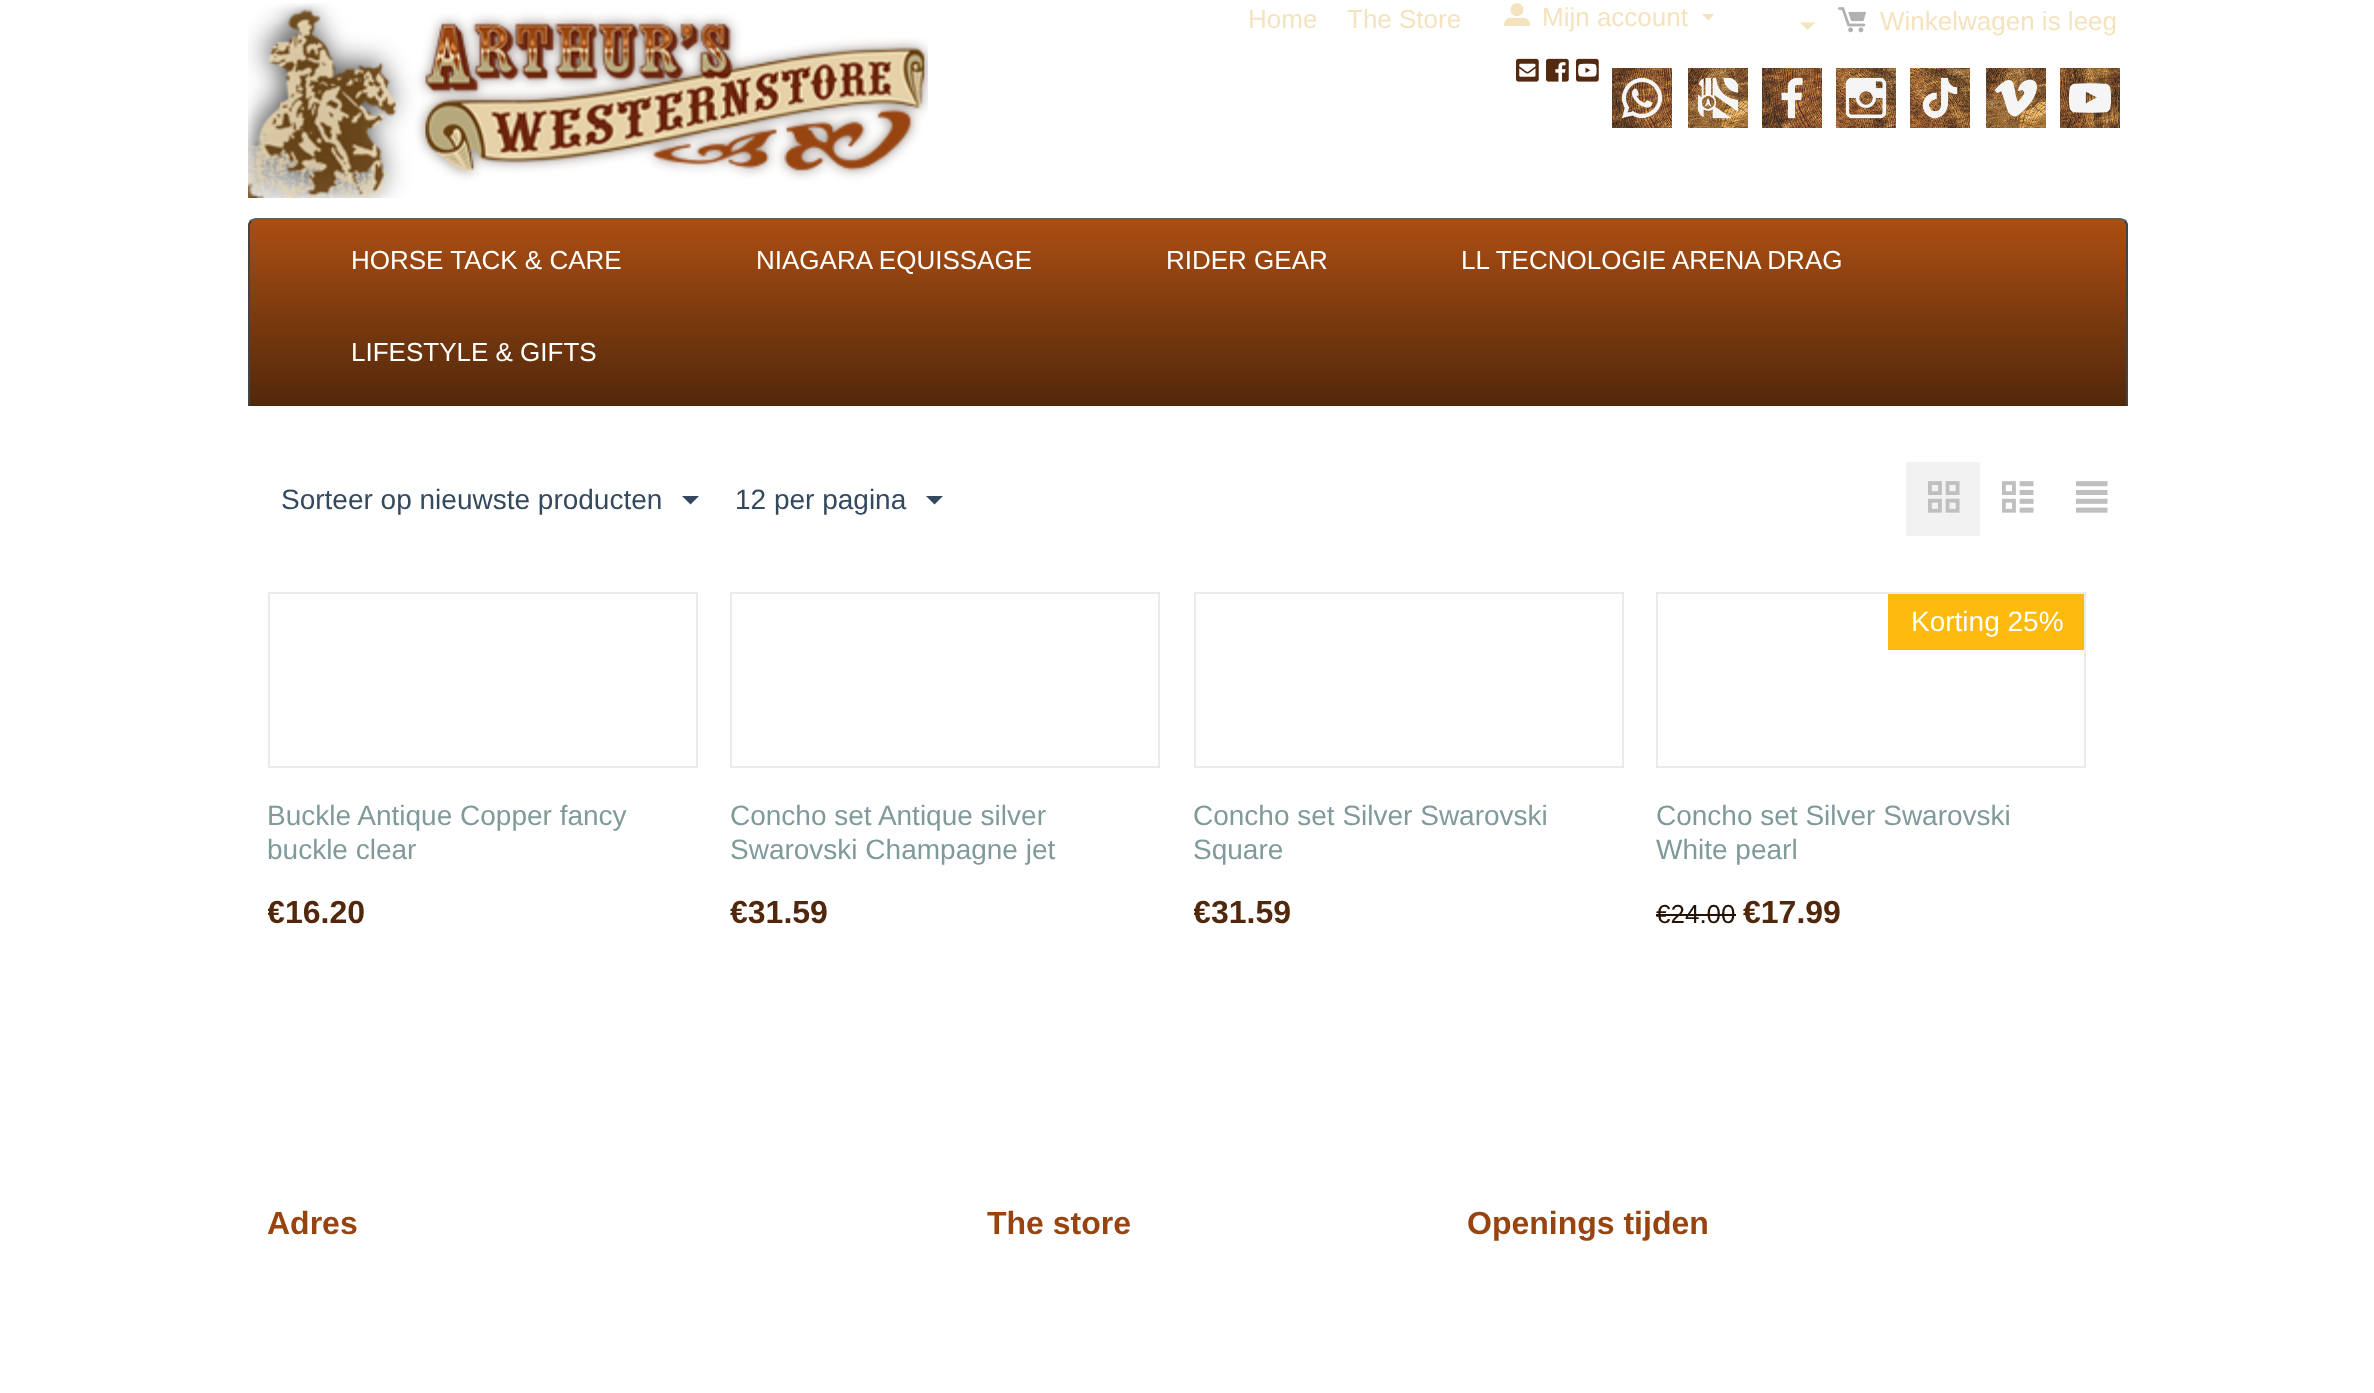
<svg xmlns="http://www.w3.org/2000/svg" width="2374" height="1393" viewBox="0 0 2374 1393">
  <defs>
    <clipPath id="clip1"><path d="M256 218H2120C2124.5 218 2128 221.5 2128 226V406H248V226C248 221.5 251.5 218 256 218Z"/></clipPath>
    <linearGradient id="g1" gradientUnits="userSpaceOnUse" x1="1188" y1="220" x2="1188" y2="406"><stop offset="0" stop-color="#ab4e13"/><stop offset="1" stop-color="#51280b"/></linearGradient>
    <clipPath id="clip2"><rect x="268" y="894" width="430" height="36"/></clipPath>
    <clipPath id="clip3"><rect x="1194" y="894" width="430" height="36"/></clipPath>
  </defs>
  <rect width="100%" height="100%" fill="#ffffff"/>
  <image x="248" y="3" width="680" height="195" href="img1.png"/>
  <text x="1248" y="28" font-family="Liberation Sans" font-size="26" fill="#f4e3be">Home</text>
  <text x="1347" y="28" font-family="Liberation Sans" font-size="26" fill="#f4e3be">The Store</text>
  <image x="1504" y="3" width="26" height="23" href="img2.png"/>
  <text x="1542" y="26" font-family="Liberation Sans" font-size="26" fill="#f4e3be">Mijn account</text>
  <path d="M1708.5 20.5L1702 14H1714.5Z" fill="#f4e3be"/>
  <path d="M1807.5 30L1800 22.5H1815.5Z" fill="#f4e3be"/>
  <image x="1838" y="7" width="28" height="26" href="img3.png"/>
  <text x="1880" y="30" font-family="Liberation Sans" font-size="26" fill="#f4e3be">Winkelwagen is leeg</text>
  <image x="1516" y="58" width="23" height="24" href="img4.png"/>
  <image x="1546" y="58" width="23" height="24" href="img5.png"/>
  <image x="1576" y="58" width="23" height="24" href="img6.png"/>
  <image x="1612" y="68" width="60" height="60" href="img7.png"/>
  <image x="1688" y="68" width="60" height="60" href="img8.png"/>
  <image x="1762" y="68" width="60" height="60" href="img9.png"/>
  <image x="1836" y="68" width="60" height="60" href="img10.png"/>
  <image x="1910" y="68" width="60" height="60" href="img11.png"/>
  <image x="1986" y="68" width="60" height="60" href="img12.png"/>
  <image x="2060" y="68" width="60" height="60" href="img13.png"/>
  <g clip-path="url(#clip1)">
    <rect x="248" y="220" width="1880" height="186" fill="url(#g1)"/>
  </g>
  <path d="M256 218C254 218 252 219 250 220L252 222C253 221 254 220 256 220H2120C2122 220 2123 221 2124 222L2126 220C2124 219 2122 218 2120 218Z" fill="#5f5f5f"/>
  <path d="M2126 406H2128V226C2128 224 2127 222 2126 220L2124 222L2126 225Z" fill="#444444"/>
  <path d="M248 406H250V225L252 222L250 220C249 222 248 224 248 226Z" fill="#444444"/>
  <text x="351" y="269" font-family="Liberation Sans" font-size="26" fill="#ffffff">HORSE TACK &amp; CARE</text>
  <text x="756" y="269" font-family="Liberation Sans" font-size="26" fill="#ffffff">NIAGARA EQUISSAGE</text>
  <text x="1166" y="269" font-family="Liberation Sans" font-size="26" fill="#ffffff">RIDER GEAR</text>
  <text x="1461" y="269" font-family="Liberation Sans" font-size="26" fill="#ffffff">LL TECNOLOGIE ARENA DRAG</text>
  <text x="351" y="361" font-family="Liberation Sans" font-size="26" fill="#ffffff">LIFESTYLE &amp; GIFTS</text>
  <text x="281" y="509" font-family="Liberation Sans" font-size="28" fill="#34495e">Sorteer op nieuwste producten</text>
  <path d="M690.5 504.5L682 496H699Z" fill="#34495e"/>
  <text x="735" y="509" font-family="Liberation Sans" font-size="28" fill="#34495e">12 per pagina</text>
  <path d="M934.5 504.5L926 496H943Z" fill="#34495e"/>
  <rect x="1906" y="462" width="74" height="74" fill="#f2f2f2"/>
  <image x="1928" y="481" width="32" height="32" href="img14.png"/>
  <image x="2002" y="481" width="32" height="32" href="img15.png"/>
  <image x="2076" y="481" width="32" height="32" href="img16.png"/>
  <rect x="269" y="593" width="428" height="174" fill="none" stroke="#ebebeb" stroke-width="2"/>
  <text x="267" y="825" font-family="Liberation Sans" font-size="28" fill="#809a9b">Buckle Antique Copper fancy</text>
  <text x="267" y="859" font-family="Liberation Sans" font-size="28" fill="#809a9b">buckle clear</text>
  <g clip-path="url(#clip2)">
    <text x="267" y="923" font-family="Liberation Sans" font-size="32" font-weight="bold" fill="#51280b">€</text>
  </g>
  <text x="285" y="923" font-family="Liberation Sans" font-size="32" font-weight="bold" fill="#51280b">16.20</text>
  <rect x="731" y="593" width="428" height="174" fill="none" stroke="#ebebeb" stroke-width="2"/>
  <text x="730" y="825" font-family="Liberation Sans" font-size="28" fill="#809a9b">Concho set Antique silver</text>
  <text x="730" y="859" font-family="Liberation Sans" font-size="28" fill="#809a9b">Swarovski Champagne jet</text>
  <text x="730" y="923" font-family="Liberation Sans" font-size="32" font-weight="bold" fill="#51280b">€31.59</text>
  <rect x="1195" y="593" width="428" height="174" fill="none" stroke="#ebebeb" stroke-width="2"/>
  <text x="1193" y="825" font-family="Liberation Sans" font-size="28" fill="#809a9b">Concho set Silver Swarovski</text>
  <text x="1193" y="859" font-family="Liberation Sans" font-size="28" fill="#809a9b">Square</text>
  <g clip-path="url(#clip3)">
    <text x="1193" y="923" font-family="Liberation Sans" font-size="32" font-weight="bold" fill="#51280b">€</text>
  </g>
  <text x="1211" y="923" font-family="Liberation Sans" font-size="32" font-weight="bold" fill="#51280b">31.59</text>
  <rect x="1657" y="593" width="428" height="174" fill="none" stroke="#ebebeb" stroke-width="2"/>
  <rect x="1888" y="594" width="196" height="56" fill="#feba0f"/>
  <text x="1911" y="631" font-family="Liberation Sans" font-size="28" fill="#ffffff">Korting 25%</text>
  <text x="1656" y="825" font-family="Liberation Sans" font-size="28" fill="#809a9b">Concho set Silver Swarovski</text>
  <text x="1656" y="859" font-family="Liberation Sans" font-size="28" fill="#809a9b">White pearl</text>
  <text x="1656" y="923" font-family="Liberation Sans" font-size="26" fill="#241205">€24.00</text>
  <rect x="1656" y="914" width="80" height="2" fill="#241205"/>
  <text x="1743" y="923" font-family="Liberation Sans" font-size="32" font-weight="bold" fill="#51280b">€17.99</text>
  <text x="267" y="1234" font-family="Liberation Sans" font-size="32" font-weight="bold" fill="#984411">Adres</text>
  <text x="987" y="1234" font-family="Liberation Sans" font-size="32" font-weight="bold" fill="#984411">The store</text>
  <text x="1467" y="1234" font-family="Liberation Sans" font-size="32" font-weight="bold" fill="#984411">Openings tijden</text>
</svg>
